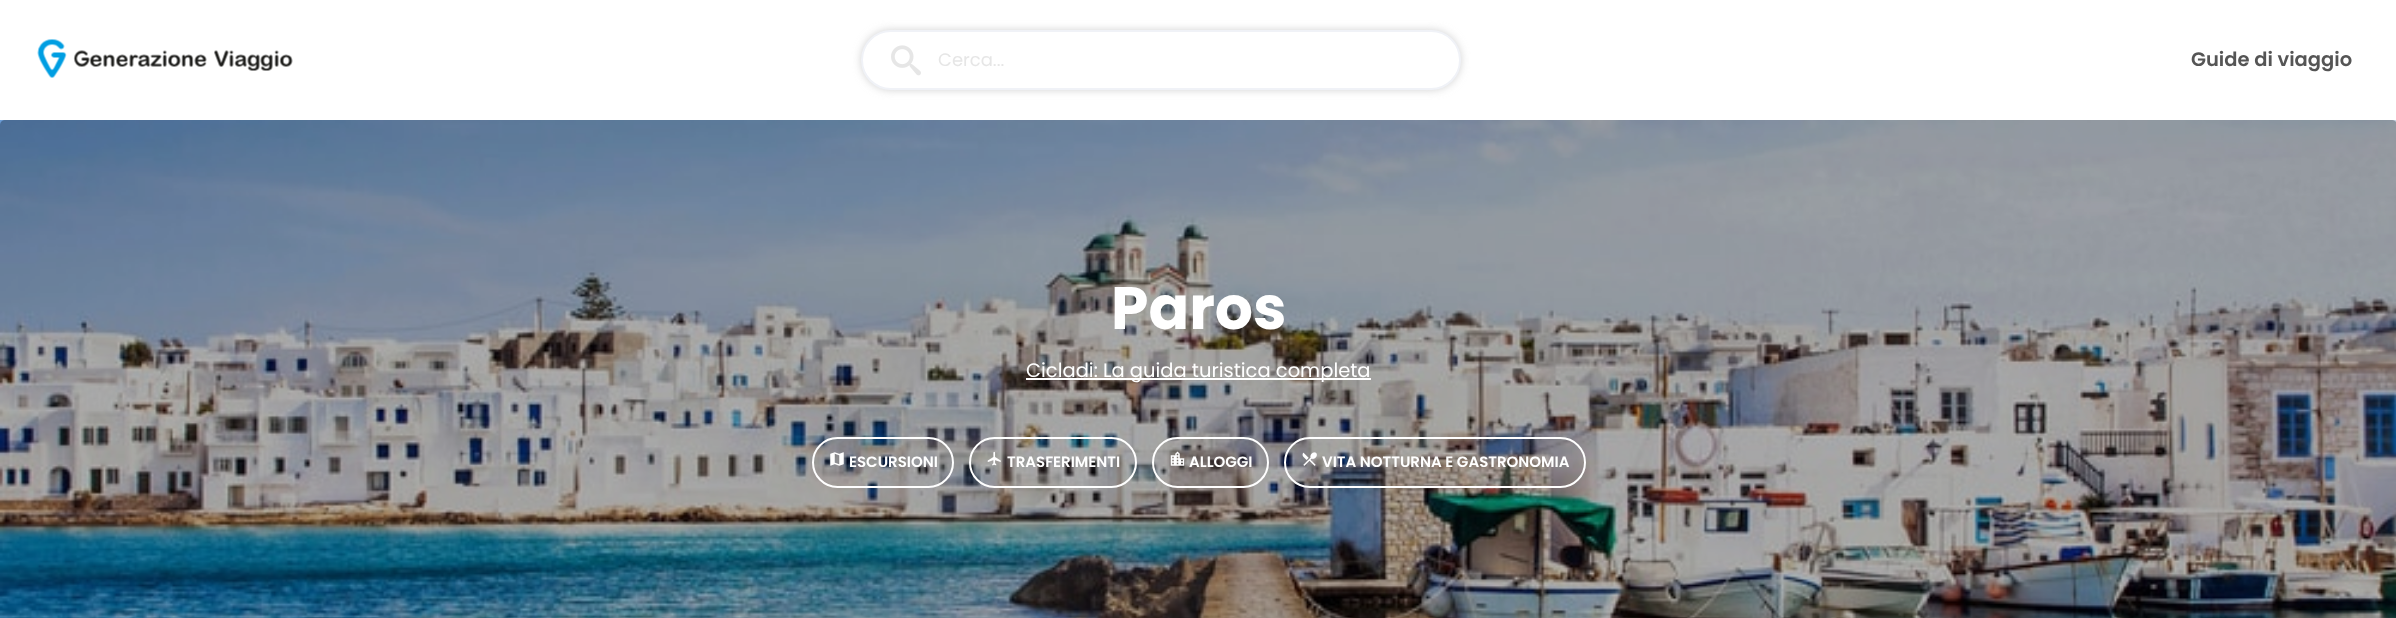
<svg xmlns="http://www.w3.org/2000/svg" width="2396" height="618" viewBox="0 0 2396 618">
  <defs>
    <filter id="blur1" x="-50%" y="-200%" width="200%" height="500%"><feGaussianBlur stdDeviation="4"/></filter>
  </defs>
  <rect width="100%" height="100%" fill="#ffffff"/>
  <image x="37" y="39" width="256" height="39" href="img1.png"/>
  <rect x="861" y="30" width="600" height="60" rx="30" fill="#d1d1d1" filter="url(#blur1)"/>
  <rect x="862" y="31" width="598" height="58" rx="29" fill="#ffffff" stroke="#f0f2f7" stroke-width="2"/>
  <image x="891" y="45" width="30" height="31" href="img2.png"/>
  <text x="938" y="66" font-family="Poppins" font-size="18" fill="#e6e6e6">Cerca...</text>
  <text x="2191" y="66" font-family="Poppins" font-size="19.5" font-weight="600" fill="#555555">Guide di viaggio</text>
  <image x="0" y="120" width="2396" height="498" href="img3.png"/>
  <text x="1111" y="329" font-family="Poppins" font-size="60" font-weight="bold" fill="#ffffff">Paros</text>
  <rect x="1026" y="378" width="345" height="2" fill="#ffffff"/>
  <text x="1026" y="377" font-family="Poppins" font-size="19.5" fill="#ffffff">Cicladi: La guida turistica completa</text>
  <rect x="813" y="438" width="140" height="49" rx="24.5" fill="none" stroke="#ffffff" stroke-width="2"/>
  <image x="830" y="452" width="14" height="14" href="img4.png"/>
  <text x="849" y="467" font-family="Poppins" font-size="15" font-weight="600" fill="#ffffff">ESCURSIONI</text>
  <rect x="970" y="438" width="166" height="49" rx="24.5" fill="none" stroke="#ffffff" stroke-width="2"/>
  <image x="987" y="451" width="14" height="15" href="img5.png"/>
  <text x="1007" y="467" font-family="Poppins" font-size="15" font-weight="600" fill="#ffffff">TRASFERIMENTI</text>
  <rect x="1153" y="438" width="115" height="49" rx="24.5" fill="none" stroke="#ffffff" stroke-width="2"/>
  <image x="1170" y="451" width="15" height="15" href="img6.png"/>
  <text x="1189" y="467" font-family="Poppins" font-size="15" font-weight="600" fill="#ffffff">ALLOGGI</text>
  <rect x="1285" y="438" width="300" height="49" rx="24.5" fill="none" stroke="#ffffff" stroke-width="2"/>
  <image x="1302" y="452" width="15" height="14" href="img7.png"/>
  <text x="1322" y="467" font-family="Poppins" font-size="15" font-weight="600" fill="#ffffff">VITA NOTTURNA E GASTRONOMIA</text>
</svg>
